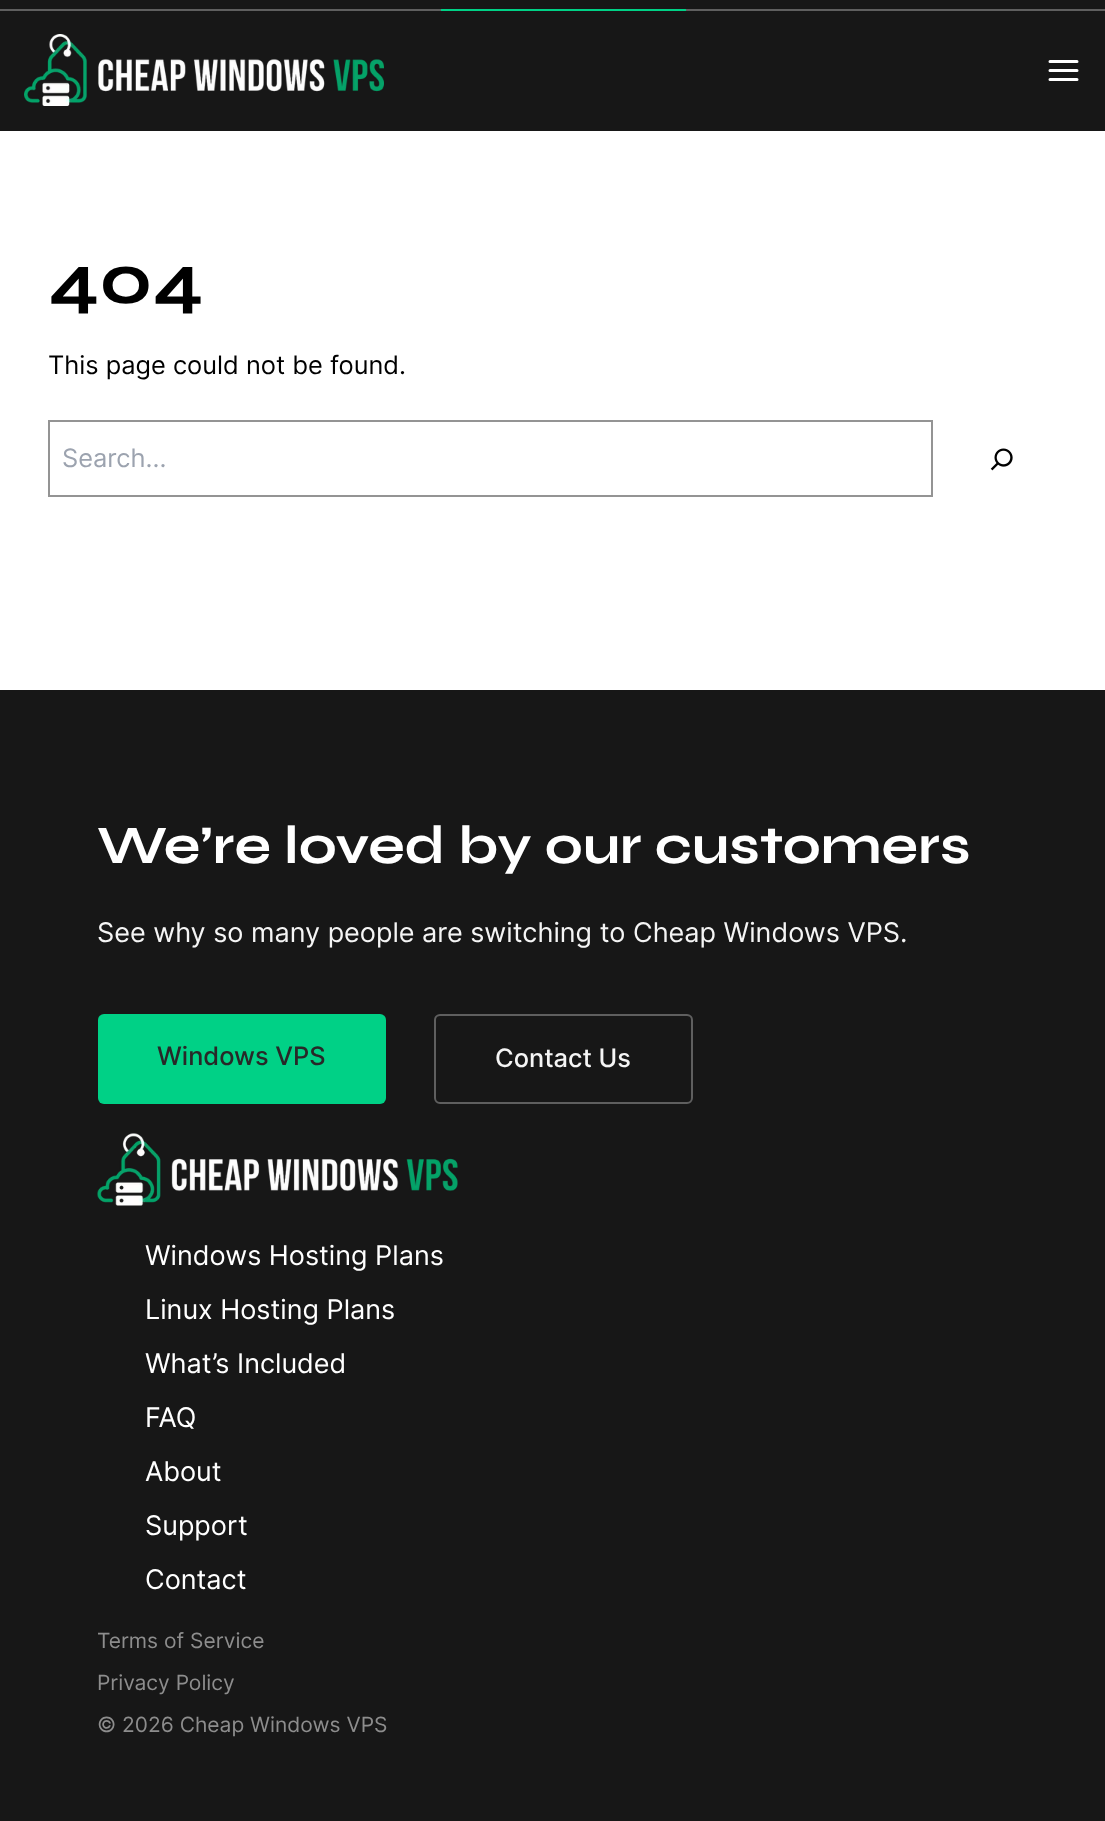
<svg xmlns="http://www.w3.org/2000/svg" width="1105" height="1821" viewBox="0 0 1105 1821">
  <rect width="100%" height="100%" fill="#ffffff"/>
  <rect x="0" y="0" width="1105" height="131" fill="#171717"/>
  <rect x="0" y="9" width="1105" height="2" fill="#5f5f5f"/>
  <rect x="441" y="9" width="245" height="2" fill="#00d186"/>
  <image x="24" y="34" width="360" height="72" href="img1.png"/>
  <path d="M1050 79.5H1077M1050 70.5H1077M1050 61.5H1077" fill="none" stroke="#ffffff" stroke-width="3" stroke-linecap="round" stroke-linejoin="round"/>
  <text x="48" y="303" font-family="Syne" font-size="72" font-weight="bold" fill="#000000">404</text>
  <text x="48" y="374" font-family="Inter" font-size="25.4" fill="#000000">This page could not be found.</text>
  <rect x="49" y="421" width="883" height="75" fill="none" stroke="#949494" stroke-width="2"/>
  <text x="62" y="467" font-family="Inter" font-size="25.4" fill="#9ca3af">Search...</text>
  <image x="990" y="448" width="23" height="23" href="img2.png"/>
  <rect x="0" y="690" width="1105" height="1131" fill="#171717"/>
  <text x="97" y="863" font-family="Syne" font-size="54" font-weight="bold" fill="#ffffff">We’re loved by our customers</text>
  <text x="97" y="942" font-family="Inter" font-size="27" fill="#f5f5f5">See why so many people are switching to Cheap Windows VPS.</text>
  <rect x="98" y="1014" width="288" height="90" rx="6" fill="#00d186"/>
  <text x="157" y="1065" font-family="Inter" font-size="25.4" font-weight="500" fill="#282828">Windows VPS</text>
  <rect x="435" y="1015" width="257" height="88" rx="5" fill="none" stroke="#5f5f5f" stroke-width="2"/>
  <text x="495" y="1067" font-family="Inter" font-size="25.4" font-weight="500" fill="#f5f5f5">Contact Us</text>
  <image x="97" y="1133" width="361" height="73" href="img3.png"/>
  <text x="145" y="1265" font-family="Inter" font-size="27" fill="#ffffff">Windows Hosting Plans</text>
  <text x="145" y="1319" font-family="Inter" font-size="27" fill="#ffffff">Linux Hosting Plans</text>
  <text x="145" y="1373" font-family="Inter" font-size="27" fill="#ffffff">What’s Included</text>
  <text x="145" y="1427" font-family="Inter" font-size="27" fill="#ffffff">FAQ</text>
  <text x="145" y="1481" font-family="Inter" font-size="27" fill="#ffffff">About</text>
  <text x="145" y="1535" font-family="Inter" font-size="27" fill="#ffffff">Support</text>
  <text x="145" y="1589" font-family="Inter" font-size="27" fill="#ffffff">Contact</text>
  <text x="97" y="1648" font-family="Inter" font-size="21" fill="#8d8d8d">Terms of Service</text>
  <text x="97" y="1690" font-family="Inter" font-size="21" fill="#8d8d8d">Privacy Policy</text>
  <text x="97" y="1732" font-family="Inter" font-size="21" fill="#8d8d8d">© 2026 Cheap Windows VPS</text>
</svg>
